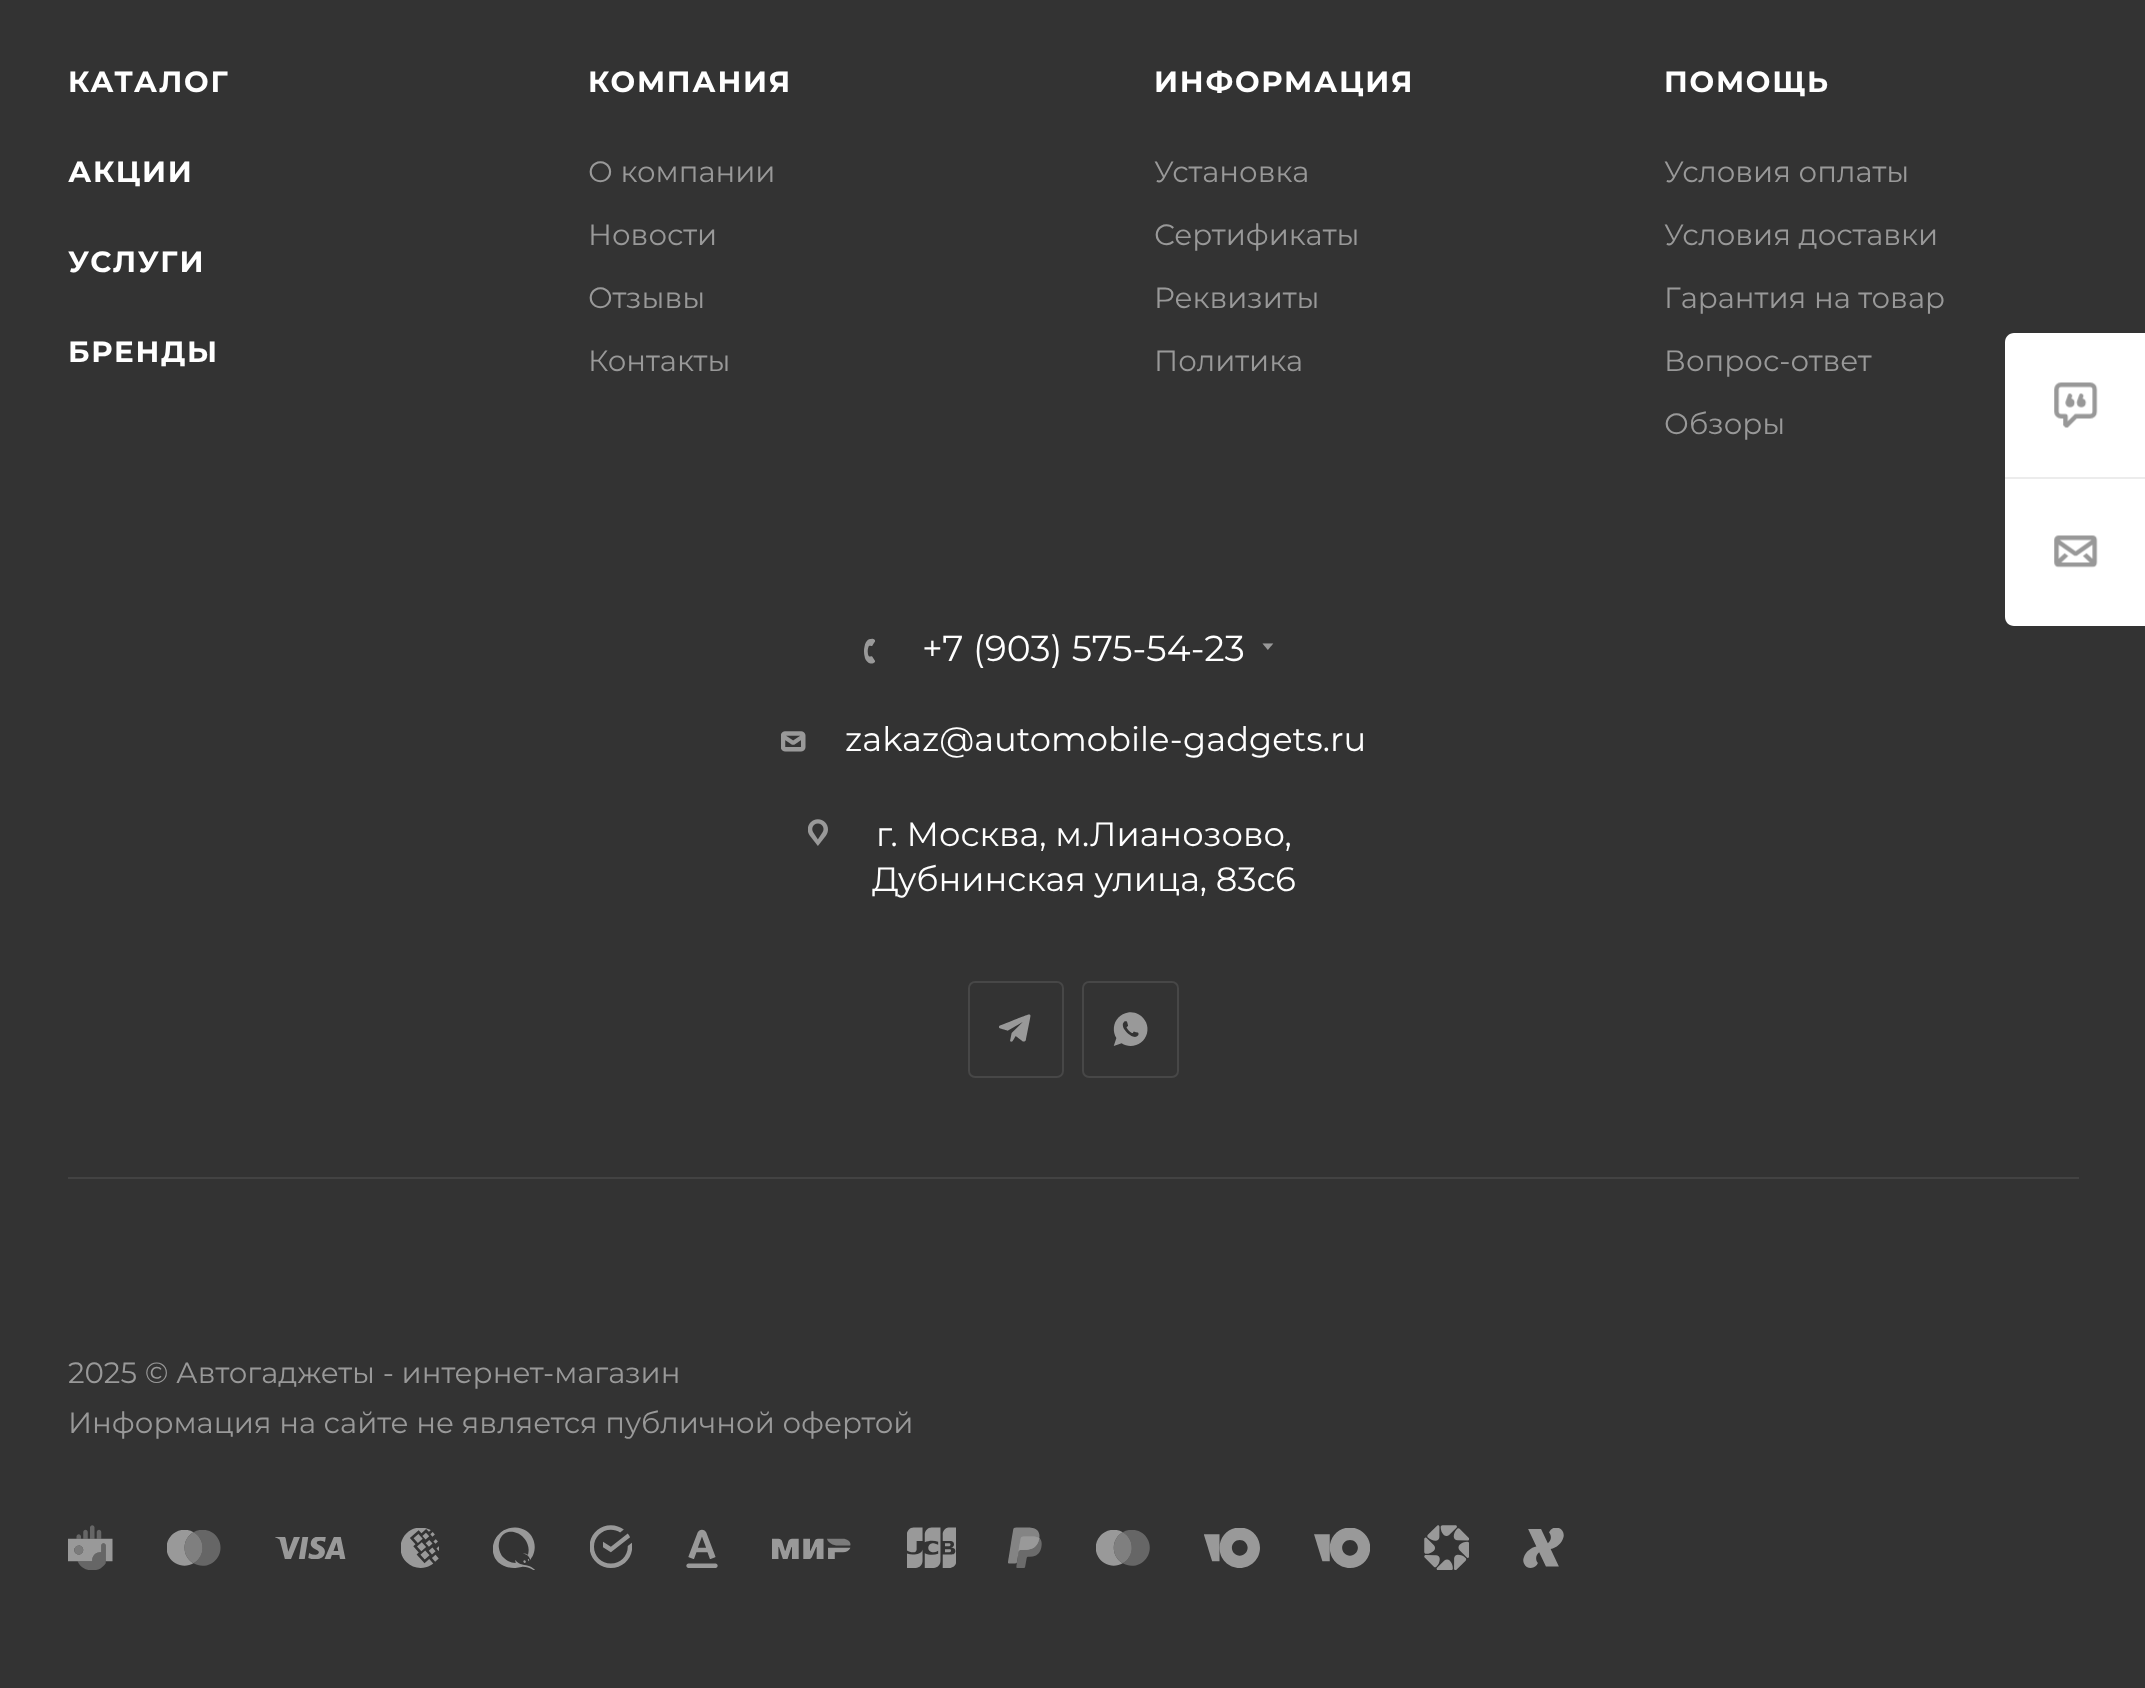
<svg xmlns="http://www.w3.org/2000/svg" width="2145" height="1688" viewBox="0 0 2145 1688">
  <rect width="100%" height="100%" fill="#333333"/>
  <text x="68" y="92" font-family="Montserrat" font-size="29.25" font-weight="bold" letter-spacing="1.75" fill="#ffffff">КАТАЛОГ</text>
  <text x="68" y="182" font-family="Montserrat" font-size="29.25" font-weight="bold" letter-spacing="1.75" fill="#ffffff">АКЦИИ</text>
  <text x="68" y="272" font-family="Montserrat" font-size="29.25" font-weight="bold" letter-spacing="1.75" fill="#ffffff">УСЛУГИ</text>
  <text x="68" y="362" font-family="Montserrat" font-size="29.25" font-weight="bold" letter-spacing="1.75" fill="#ffffff">БРЕНДЫ</text>
  <text x="588" y="92" font-family="Montserrat" font-size="29.25" font-weight="bold" letter-spacing="1.75" fill="#ffffff">КОМПАНИЯ</text>
  <text x="588" y="182" font-family="Montserrat" font-size="29.25" fill="#999999">О компании</text>
  <text x="588" y="245" font-family="Montserrat" font-size="29.25" fill="#999999">Новости</text>
  <text x="588" y="308" font-family="Montserrat" font-size="29.25" fill="#999999">Отзывы</text>
  <text x="588" y="371" font-family="Montserrat" font-size="29.25" fill="#999999">Контакты</text>
  <text x="1154" y="92" font-family="Montserrat" font-size="29.25" font-weight="bold" letter-spacing="1.75" fill="#ffffff">ИНФОРМАЦИЯ</text>
  <text x="1154" y="182" font-family="Montserrat" font-size="29.25" fill="#999999">Установка</text>
  <text x="1154" y="245" font-family="Montserrat" font-size="29.25" fill="#999999">Сертификаты</text>
  <text x="1154" y="308" font-family="Montserrat" font-size="29.25" fill="#999999">Реквизиты</text>
  <text x="1154" y="371" font-family="Montserrat" font-size="29.25" fill="#999999">Политика</text>
  <text x="1664" y="92" font-family="Montserrat" font-size="29.25" font-weight="bold" letter-spacing="1.75" fill="#ffffff">ПОМОЩЬ</text>
  <text x="1664" y="182" font-family="Montserrat" font-size="29.25" fill="#999999">Условия оплаты</text>
  <text x="1664" y="245" font-family="Montserrat" font-size="29.25" fill="#999999">Условия доставки</text>
  <text x="1664" y="308" font-family="Montserrat" font-size="29.25" fill="#999999">Гарантия на товар</text>
  <text x="1664" y="371" font-family="Montserrat" font-size="29.25" fill="#999999">Вопрос-ответ</text>
  <text x="1664" y="434" font-family="Montserrat" font-size="29.25" fill="#999999">Обзоры</text>
  <image x="864" y="638" width="11" height="26" href="img1.png"/>
  <text x="922" y="661" font-family="Montserrat" font-size="36" fill="#ffffff">+7 (903) 575-54-23</text>
  <image x="1262" y="643" width="12" height="7" href="img2.png"/>
  <image x="781" y="731" width="25" height="21" href="img3.png"/>
  <text x="845" y="751" font-family="Montserrat" font-size="33.75" fill="#ffffff">zakaz@automobile-gadgets.ru</text>
  <image x="808" y="819" width="20" height="27" href="img4.png"/>
  <text x="876" y="846" font-family="Montserrat" font-size="33.75" fill="#ffffff">г. Москва, м.Лианозово,</text>
  <text x="872" y="891" font-family="Montserrat" font-size="33.75" fill="#ffffff">Дубнинская улица, 83с6</text>
  <image x="999" y="1014" width="32" height="28" href="img5.png"/>
  <rect x="969" y="982" width="94" height="95" rx="6" fill="none" stroke="#474747" stroke-width="2"/>
  <image x="1113" y="1012" width="35" height="34" href="img6.png"/>
  <rect x="1083" y="982" width="95" height="95" rx="6" fill="none" stroke="#474747" stroke-width="2"/>
  <rect x="68" y="1177" width="2011" height="2" fill="#434343"/>
  <text x="68" y="1383" font-family="Montserrat" font-size="29.25" fill="#999999">2025 © Автогаджеты - интернет-магазин</text>
  <text x="68" y="1433" font-family="Montserrat" font-size="29.25" fill="#999999">Информация на сайте не является публичной офертой</text>
  <image x="68" y="1525" width="45" height="45" href="img7.png"/>
  <image x="167" y="1530" width="54" height="36" href="img8.png"/>
  <image x="275" y="1537" width="71" height="22" href="img9.png"/>
  <image x="401" y="1528" width="38" height="40" href="img10.png"/>
  <image x="493" y="1527" width="42" height="43" href="img11.png"/>
  <image x="590" y="1525" width="42" height="43" href="img12.png"/>
  <image x="686" y="1529" width="32" height="39" href="img13.png"/>
  <image x="772" y="1538" width="79" height="21" href="img14.png"/>
  <image x="907" y="1527" width="49" height="41" href="img15.png"/>
  <image x="1008" y="1527" width="34" height="41" href="img16.png"/>
  <image x="1096" y="1530" width="54" height="36" href="img17.png"/>
  <image x="1204" y="1528" width="56" height="40" href="img18.png"/>
  <image x="1314" y="1528" width="56" height="40" href="img19.png"/>
  <image x="1424" y="1525" width="45" height="45" href="img20.png"/>
  <image x="1523" y="1528" width="41" height="40" href="img21.png"/>
  <path d="M2014 333H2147V626H2014C2009 626 2005 622 2005 617V342C2005 337 2009 333 2014 333Z" fill="#ffffff"/>
  <rect x="2005" y="477" width="140" height="2" fill="#ececec"/>
  <image x="2054" y="382" width="44" height="46" href="img22.png"/>
  <image x="2054" y="535" width="44" height="33" href="img23.png"/>
</svg>
